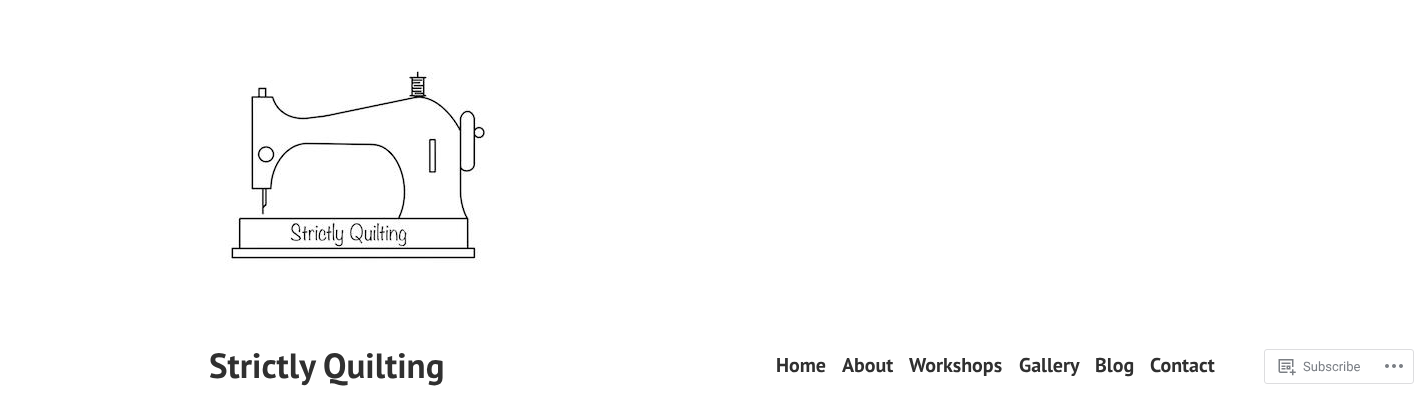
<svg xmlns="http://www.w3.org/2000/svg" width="1424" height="394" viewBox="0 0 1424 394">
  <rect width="100%" height="100%" fill="#ffffff"/>
  <image x="225" y="70" width="264" height="194" href="img1.png"/>
  <text x="209" y="378" font-family="PT Sans" font-size="35" font-weight="bold" fill="#303030">Strictly Quilting</text>
  <text x="776" y="372" font-family="PT Sans" font-size="20" font-weight="bold" fill="#303030">Home</text>
  <text x="842" y="372" font-family="PT Sans" font-size="20" font-weight="bold" fill="#303030">About</text>
  <text x="909" y="372" font-family="PT Sans" font-size="20" font-weight="bold" fill="#303030">Workshops</text>
  <text x="1019" y="372" font-family="PT Sans" font-size="20" font-weight="bold" fill="#303030">Gallery</text>
  <text x="1095" y="372" font-family="PT Sans" font-size="20" font-weight="bold" fill="#303030">Blog</text>
  <text x="1150" y="372" font-family="PT Sans" font-size="20" font-weight="bold" fill="#303030">Contact</text>
  <rect x="1264.5" y="349.5" width="149" height="34" rx="2.5" fill="none" stroke="#dddddf"/>
  <image x="1278" y="359" width="18" height="17" href="img2.png"/>
  <text x="1303" y="371" font-family="Roboto" font-size="13" fill="#7b7f85">Subscribe</text>
  <image x="1385" y="364" width="18" height="4" href="img3.png"/>
</svg>
